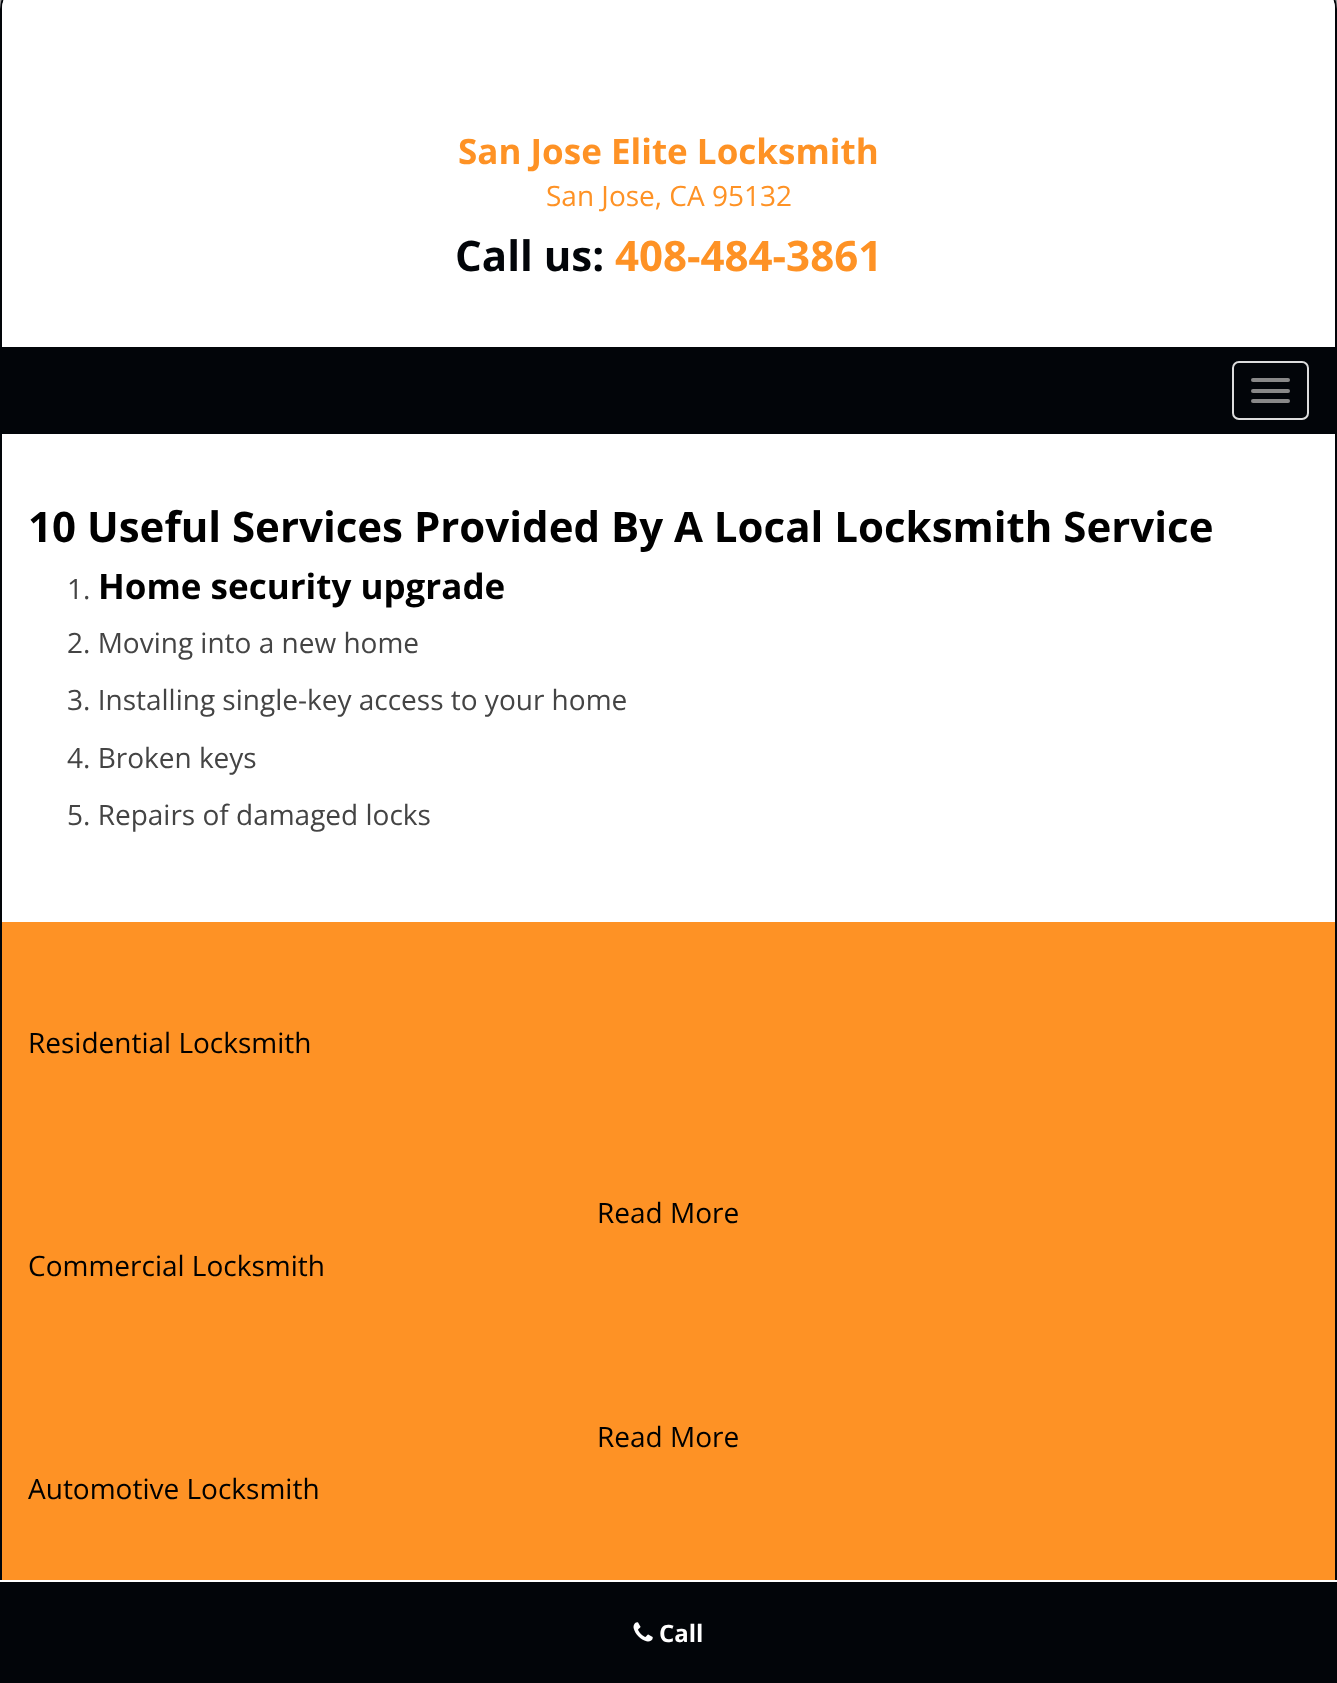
<svg xmlns="http://www.w3.org/2000/svg" width="1337" height="1683" viewBox="0 0 1337 1683">
  <defs>
    <clipPath id="clip1"><path d="M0 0H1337V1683H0ZM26-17H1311C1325.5-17 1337-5.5 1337 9V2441H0V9C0-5.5 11.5-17 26-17Z" clip-rule="evenodd"/></clipPath>
    <filter id="blur1" x="-50%" y="-200%" width="200%" height="500%"><feGaussianBlur stdDeviation="6"/></filter>
  </defs>
  <rect width="100%" height="100%" fill="#ffffff"/>
  <g clip-path="url(#clip1)">
    <rect x="0" y="-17" width="1337" height="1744" rx="26" fill="#020509" filter="url(#blur1)"/>
  </g>
  <path d="M26-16H1311C1325-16 1336-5 1336 9V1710H1V9C1-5 12-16 26-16Z" fill="none" stroke="#020509" stroke-width="2"/>
  <path d="M27-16H1310C1324-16 1335-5 1335 9V347H2V9C2-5 13-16 27-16Z" fill="#ffffff"/>
  <text x="458" y="164" font-family="Open Sans" font-size="35" font-weight="bold" fill="#fe9225">San Jose Elite Locksmith</text>
  <text x="546" y="206" font-family="Open Sans" font-size="28" fill="#fe9225">San Jose, CA 95132</text>
  <text x="455" y="271" font-family="Open Sans" font-size="42" font-weight="bold" fill="#020509">Call us:</text>
  <text x="615" y="271" font-family="Open Sans" font-size="42" font-weight="bold" fill="#fe9225">408-484-3861</text>
  <rect x="2" y="347" width="1333" height="87" fill="#020509"/>
  <rect x="1233" y="362" width="75" height="57" rx="6" fill="none" stroke="#dddddd" stroke-width="2"/>
  <rect x="1251" y="378" width="39" height="4" rx="2" fill="#888888"/>
  <rect x="1251" y="389" width="39" height="4" rx="2" fill="#888888"/>
  <rect x="1251" y="399" width="39" height="4" rx="2" fill="#888888"/>
  <text x="28" y="542" font-family="Open Sans" font-size="42" font-weight="bold" fill="#000000">10 Useful Services Provided By A Local Locksmith Service</text>
  <text x="67" y="599" font-family="Open Sans" font-size="28" fill="#444444">1.</text>
  <text x="98" y="599" font-family="Open Sans" font-size="35" font-weight="bold" fill="#000000">Home security upgrade</text>
  <text x="67" y="653" font-family="Open Sans" font-size="28" fill="#444444">2. Moving into a new home</text>
  <text x="67" y="710" font-family="Open Sans" font-size="28" fill="#444444">3. Installing single-key access to your home</text>
  <text x="67" y="768" font-family="Open Sans" font-size="28" fill="#444444">4. Broken keys</text>
  <text x="67" y="825" font-family="Open Sans" font-size="28" fill="#444444">5. Repairs of damaged locks</text>
  <rect x="2" y="922" width="1333" height="658" fill="#fe9225"/>
  <text x="28" y="1053" font-family="Open Sans" font-size="28" fill="#000000">Residential Locksmith</text>
  <text x="597" y="1223" font-family="Open Sans" font-size="28" fill="#000000">Read More</text>
  <text x="28" y="1276" font-family="Open Sans" font-size="28" fill="#000000">Commercial Locksmith</text>
  <text x="597" y="1447" font-family="Open Sans" font-size="28" fill="#000000">Read More</text>
  <text x="28" y="1499" font-family="Open Sans" font-size="28" fill="#000000">Automotive Locksmith</text>
  <rect x="2" y="1582" width="1333" height="101" fill="#020509"/>
  <rect x="0" y="1580" width="1337" height="2" fill="#ffffff"/>
  <image x="633" y="1622" width="20" height="20" href="img1.png"/>
  <text x="659" y="1642" font-family="Open Sans" font-size="24" font-weight="bold" fill="#ffffff">Call</text>
</svg>
